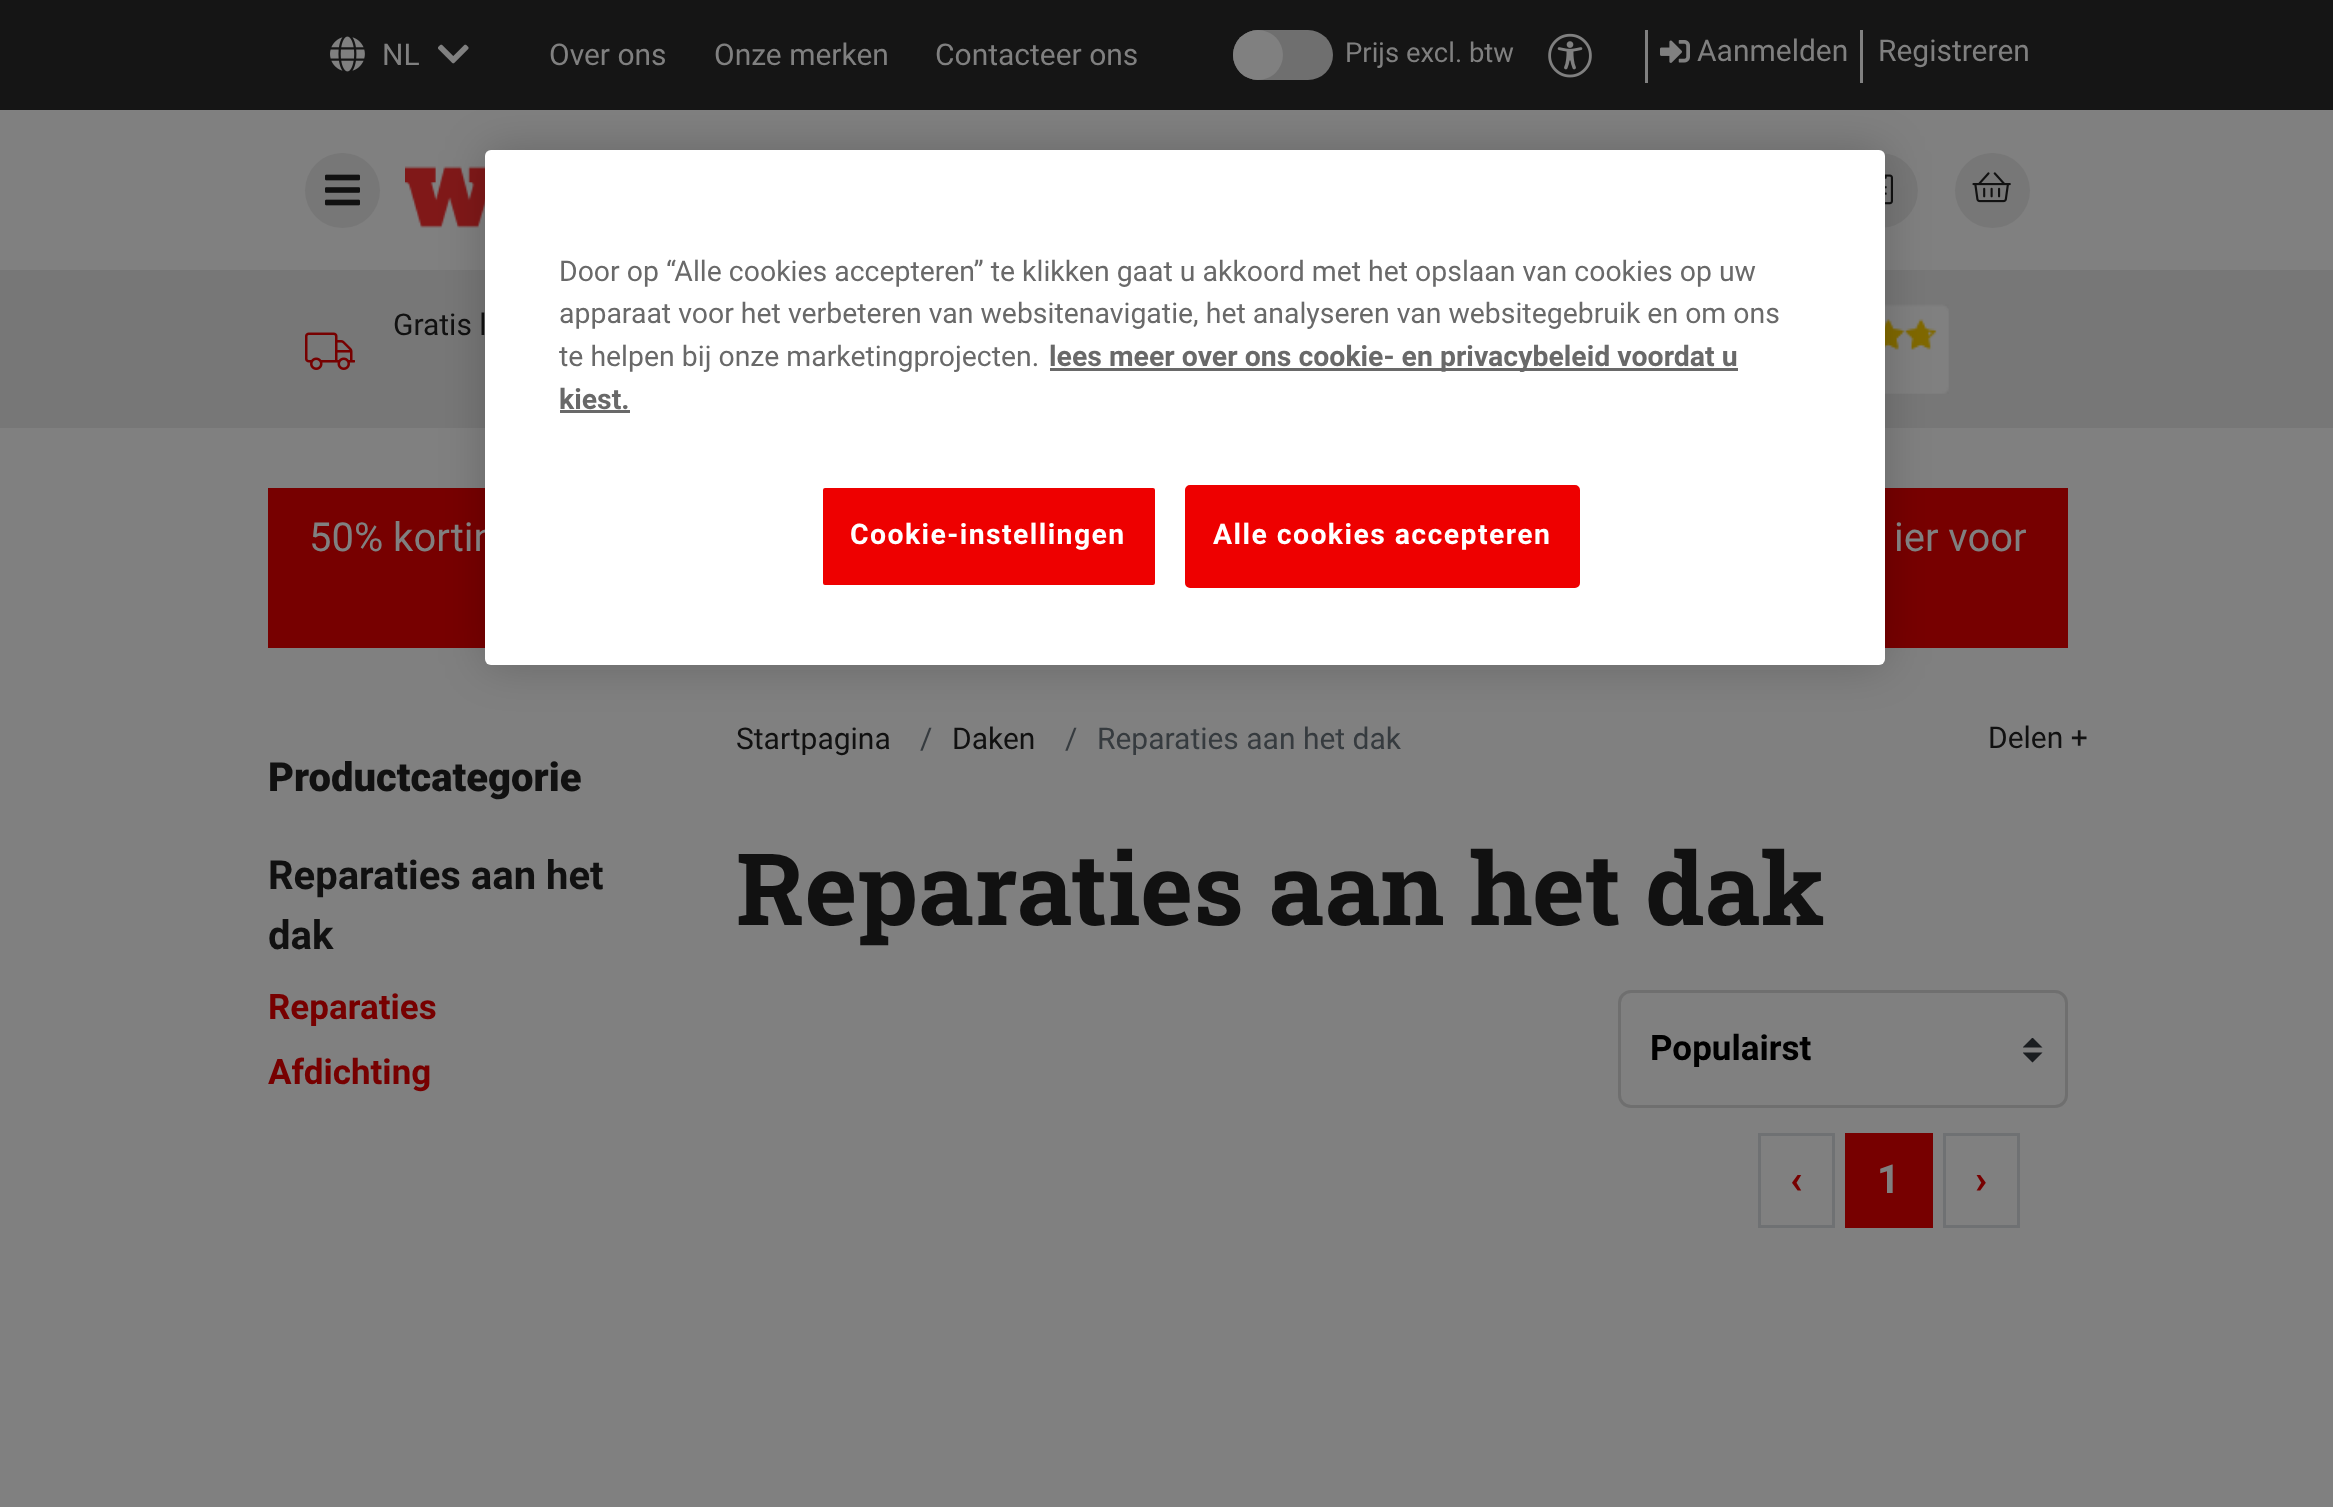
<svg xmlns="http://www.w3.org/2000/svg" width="2333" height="1507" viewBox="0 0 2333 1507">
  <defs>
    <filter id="blur1" x="-50%" y="-200%" width="200%" height="500%"><feGaussianBlur stdDeviation="22.5"/></filter>
    <clipPath id="clip1"><rect x="2023" y="1038" width="20" height="25"/></clipPath>
  </defs>
  <rect width="100%" height="100%" fill="#808080"/>
  <rect x="0" y="270" width="2333" height="158" fill="#777777"/>
  <rect x="0" y="0" width="2333" height="110" fill="#151515"/>
  <image x="330" y="36" width="35" height="36" href="img1.png"/>
  <text x="382" y="65" font-family="Roboto" font-size="30" fill="#808080">NL</text>
  <image x="438" y="44" width="31" height="20" href="img2.png"/>
  <text x="549" y="65" font-family="Roboto" font-size="30" fill="#808080">Over ons</text>
  <text x="714" y="65" font-family="Roboto" font-size="30" fill="#808080">Onze merken</text>
  <text x="935" y="65" font-family="Roboto" font-size="30" fill="#808080">Contacteer ons</text>
  <rect x="1233" y="30" width="100" height="50" rx="25" fill="#6f6f6f"/>
  <circle cx="1258" cy="55" r="25" fill="#808080"/>
  <text x="1345" y="62" font-family="Roboto" font-size="27.5" fill="#808080">Prijs excl. btw</text>
  <rect x="1645" y="30" width="3" height="53" fill="#808080"/>
  <image x="1548" y="33" width="44" height="45" href="img3.png"/>
  <image x="1660" y="40" width="30" height="23" href="img4.png"/>
  <text x="1697" y="61" font-family="Roboto" font-size="30" fill="#808080">Aanmelden</text>
  <rect x="1860" y="30" width="3" height="53" fill="#808080"/>
  <text x="1878" y="61" font-family="Roboto" font-size="30" fill="#808080">Registreren</text>
  <circle cx="342.5" cy="190.5" r="37.5" fill="#777777"/>
  <image x="325" y="174" width="35" height="32" href="img5.png"/>
  <image x="405" y="166" width="80" height="62" href="img6.png"/>
  <circle cx="1880.5" cy="190.5" r="37.5" fill="#777777"/>
  <image x="1885" y="174" width="8" height="31" href="img7.png"/>
  <circle cx="1992.5" cy="190.5" r="37.5" fill="#777777"/>
  <image x="1972" y="172" width="39" height="31" href="img8.png"/>
  <text x="393" y="335" font-family="Roboto" font-size="30" fill="#111111">Gratis l</text>
  <image x="305" y="332" width="50" height="38" href="img9.png"/>
  <image x="1885" y="304" width="64" height="90" href="img10.png"/>
  <rect x="268" y="488" width="1800" height="160" fill="#770000"/>
  <rect x="485" y="150" width="1400" height="515" rx="6" fill="#000000" fill-opacity="0.2" filter="url(#blur1)"/>
  <text x="309" y="551" font-family="Roboto" font-size="40" fill="#808080">50% kortin</text>
  <rect x="485" y="150" width="1400" height="515" rx="6" fill="#ffffff"/>
  <text x="559" y="281" font-family="Roboto" font-size="28.45" fill="#696969">Door op “Alle cookies accepteren” te klikken gaat u akkoord met het opslaan van cookies op uw</text>
  <text x="559" y="323" font-family="Roboto" font-size="28.45" fill="#696969">apparaat voor het verbeteren van websitenavigatie, het analyseren van websitegebruik en om ons</text>
  <text x="559" y="366" font-family="Roboto" font-size="28.45" fill="#696969">te helpen bij onze marketingprojecten.</text>
  <rect x="1050" y="368" width="688" height="3" fill="#696969"/>
  <text x="1049" y="366" font-family="Roboto" font-size="28.45" font-weight="bold" fill="#696969">lees meer over ons cookie- en privacybeleid voordat u</text>
  <text x="559" y="409" font-family="Roboto" font-size="28.45" font-weight="bold" fill="#696969">kiest.</text>
  <rect x="560" y="410" width="70" height="3" fill="#696969"/>
  <rect x="821.5" y="486.5" width="335" height="100" rx="3.5" fill="#ee0000" stroke="#ffffff" stroke-width="3"/>
  <text x="850" y="544" font-family="Roboto" font-size="28.45" font-weight="bold" letter-spacing="1.4" fill="#ffffff">Cookie-instellingen</text>
  <rect x="1186.5" y="486.5" width="392" height="100" rx="3.5" fill="#ee0000" stroke="#ee0000" stroke-width="3"/>
  <text x="1213" y="544" font-family="Roboto" font-size="28.45" font-weight="bold" letter-spacing="1.4" fill="#ffffff">Alle cookies accepteren</text>
  <text x="1894" y="551" font-family="Roboto" font-size="40" fill="#808080">ier voor</text>
  <text x="268" y="791" font-family="Roboto" font-size="40" font-weight="900" fill="#111111">Productcategorie</text>
  <text x="268" y="889" font-family="Roboto" font-size="40" font-weight="bold" fill="#111111">Reparaties aan het</text>
  <text x="268" y="949" font-family="Roboto" font-size="40" font-weight="bold" fill="#111111">dak</text>
  <text x="268" y="1019" font-family="Roboto" font-size="35" font-weight="bold" fill="#770000">Reparaties</text>
  <text x="268" y="1084" font-family="Roboto" font-size="35" font-weight="bold" fill="#770000">Afdichting</text>
  <text x="736" y="749" font-family="Roboto" font-size="30" fill="#111111">Startpagina</text>
  <text x="920" y="749" font-family="Roboto" font-size="30" fill="#363b3f">/</text>
  <text x="952" y="749" font-family="Roboto" font-size="30" fill="#111111">Daken</text>
  <text x="1065" y="749" font-family="Roboto" font-size="30" fill="#363b3f">/</text>
  <text x="1097" y="749" font-family="Roboto" font-size="30" fill="#363b3f">Reparaties aan het dak</text>
  <text x="1988" y="748" font-family="Roboto" font-size="30" fill="#111111">Delen +</text>
  <text x="736" y="925" font-family="Roboto Slab" font-size="100" font-weight="bold" fill="#111111">Reparaties aan het dak</text>
  <g clip-path="url(#clip1)">
    <path d="M2032.5 1037.5L2022.5 1047.5H2042.5ZM2032.5 1062.5L2022.5 1052.5H2042.5Z" fill="#1a1d20"/>
  </g>
  <rect x="1619.5" y="991.5" width="447" height="115" rx="11.5" fill="none" stroke="#6f6f6f" stroke-width="3"/>
  <text x="1650" y="1060" font-family="Roboto" font-size="35" font-weight="bold" fill="#000000">Populairst</text>
  <rect x="1759.5" y="1134.5" width="74" height="92" fill="none" stroke="#6f7173" stroke-width="3"/>
  <text x="1790" y="1193" font-family="Roboto" font-size="40" font-weight="bold" fill="#770000">‹</text>
  <rect x="1845" y="1133" width="88" height="95" fill="#770000"/>
  <text x="1877" y="1193" font-family="Roboto" font-size="40" font-weight="bold" fill="#808080">1</text>
  <rect x="1944.5" y="1134.5" width="74" height="92" fill="none" stroke="#6f7173" stroke-width="3"/>
  <text x="1975" y="1193" font-family="Roboto" font-size="40" font-weight="bold" fill="#770000">›</text>
</svg>
